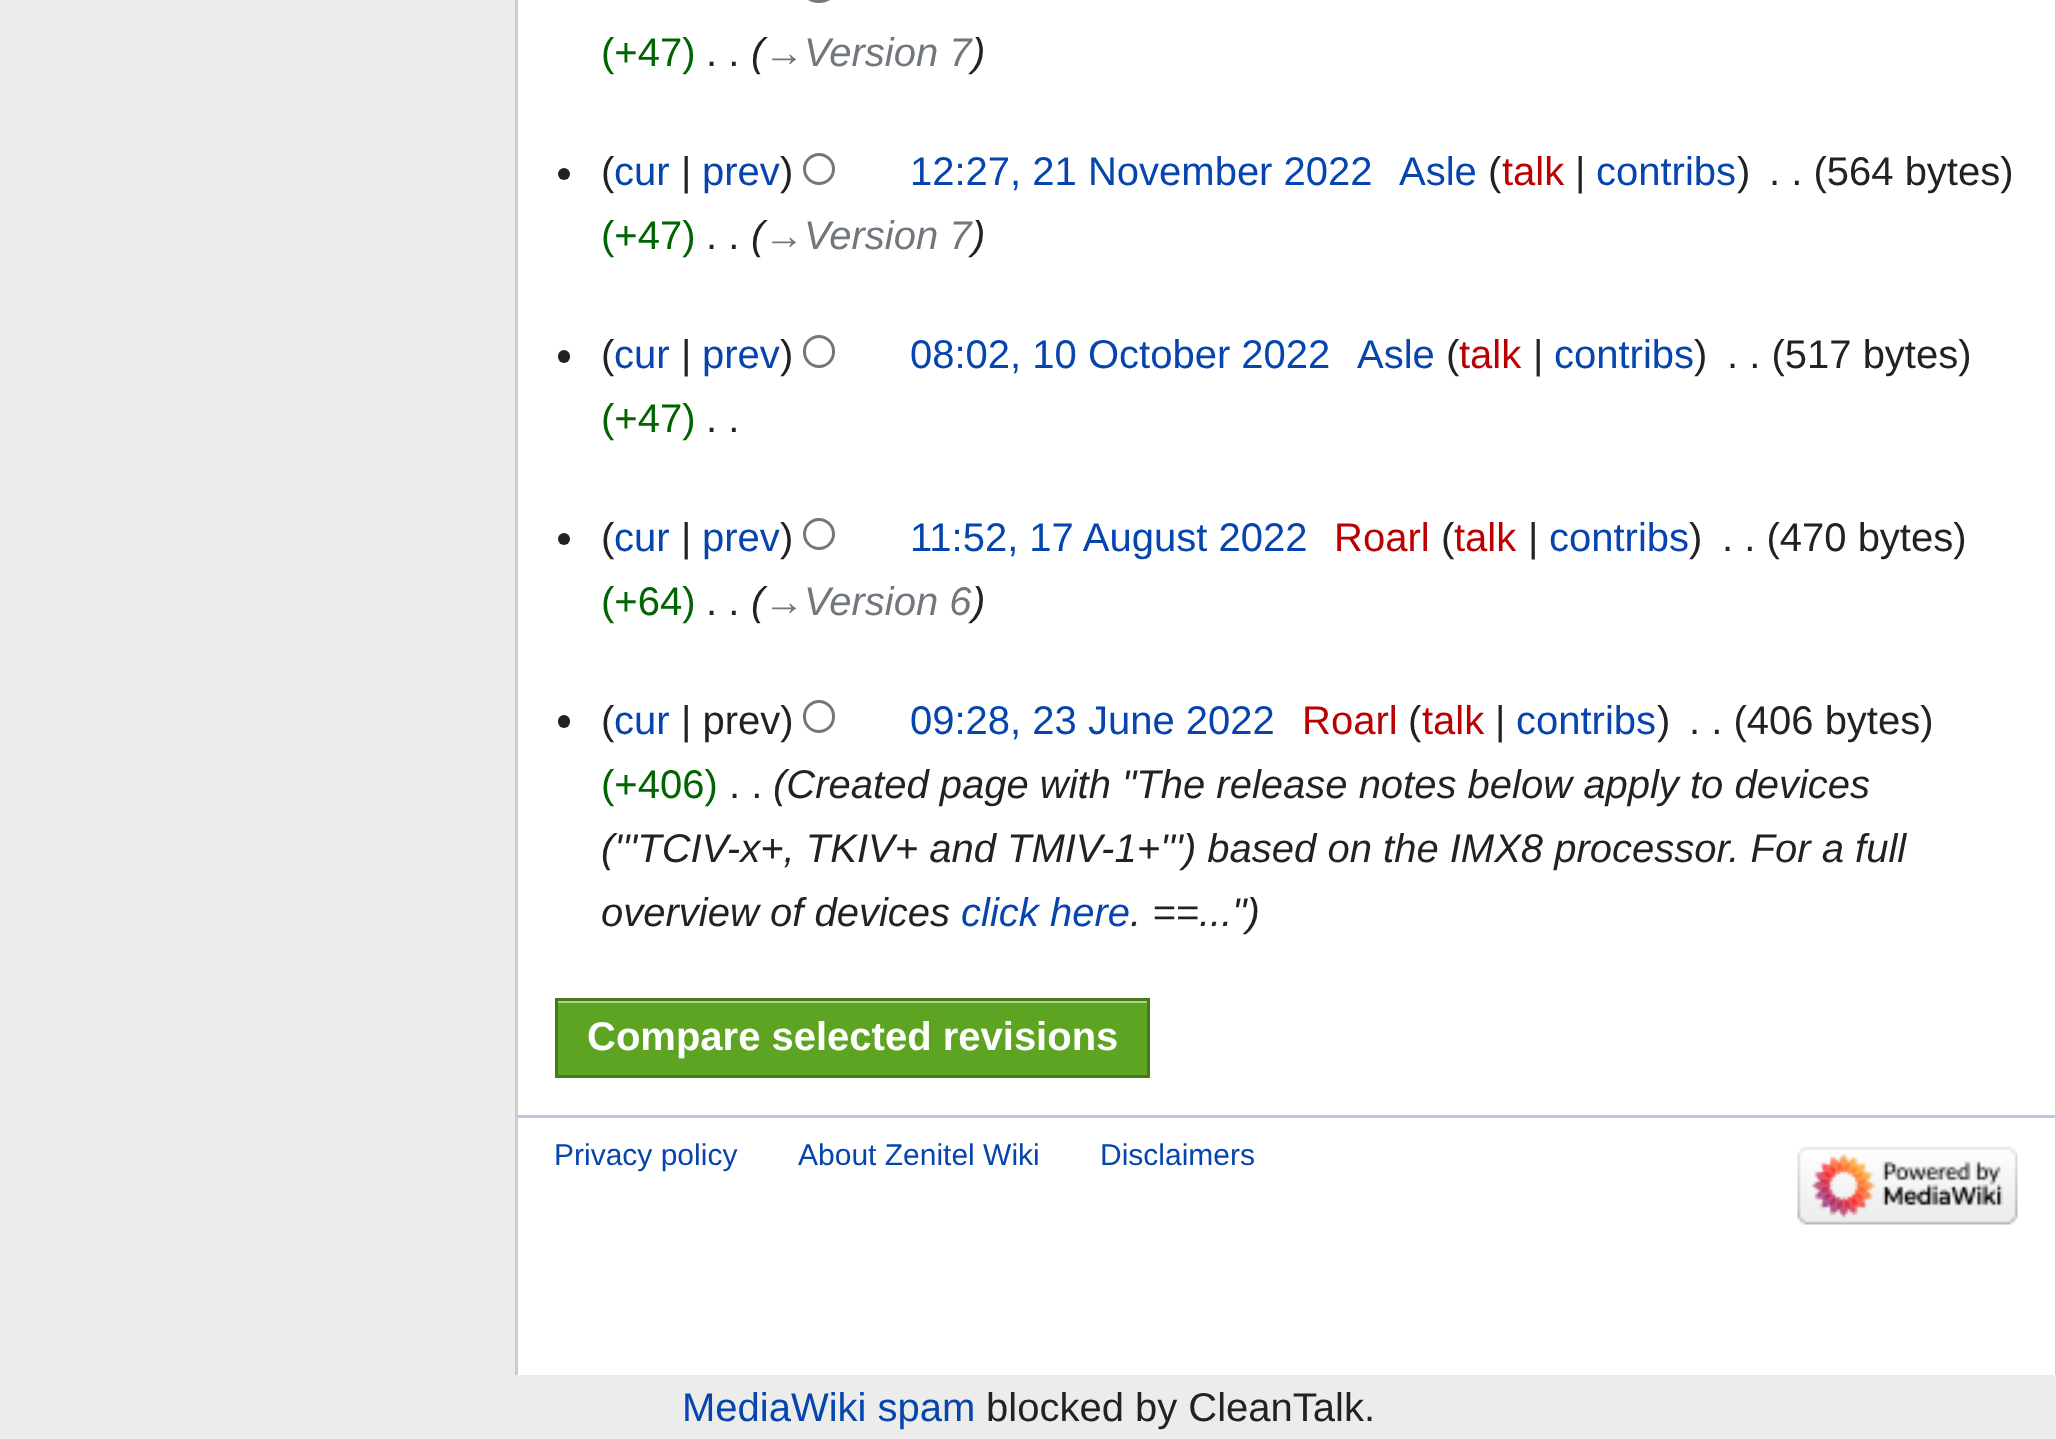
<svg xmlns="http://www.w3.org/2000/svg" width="2056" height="1439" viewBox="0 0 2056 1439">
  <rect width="100%" height="100%" fill="#ececeb"/>
  <rect x="518" y="0" width="1537" height="1375" fill="#ffffff"/>
  <rect x="2055" y="0" width="1" height="1375" fill="#cccccc"/>
  <rect x="515" y="0" width="3" height="1375" fill="#cccccc"/>
  <rect x="804.5" y="-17.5" width="29" height="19" rx="14.5" fill="none" stroke="#767676" stroke-width="3"/>
  <text x="601" y="66" font-family="Liberation Sans" font-size="40" fill="#006400">(+47)</text>
  <text x="706" y="66" font-family="Liberation Sans" font-size="40" fill="#222222">. .</text>
  <text x="751" y="66" font-family="Liberation Sans" font-size="40" font-style="italic" fill="#222222">(</text>
  <text x="764" y="66" font-family="Liberation Sans" font-size="40" font-style="italic" fill="#72777d">→Version 7</text>
  <text x="972" y="66" font-family="Liberation Sans" font-size="40" font-style="italic" fill="#222222">)</text>
  <circle cx="564" cy="174" r="6" fill="#222222"/>
  <text x="601" y="185" font-family="Liberation Sans" font-size="40" fill="#222222">(</text>
  <text x="614" y="185" font-family="Liberation Sans" font-size="40" fill="#0645ad">cur</text>
  <text x="681" y="185" font-family="Liberation Sans" font-size="40" fill="#222222">|</text>
  <text x="702" y="185" font-family="Liberation Sans" font-size="40" fill="#0645ad">prev</text>
  <text x="780" y="185" font-family="Liberation Sans" font-size="40" fill="#222222">)</text>
  <circle cx="819" cy="169" r="14.5" fill="none" stroke="#767676" stroke-width="3"/>
  <text x="910" y="185" font-family="Liberation Sans" font-size="40" fill="#0645ad">12:27, 21 November 2022</text>
  <text x="1399" y="185" font-family="Liberation Sans" font-size="40" fill="#0645ad">Asle</text>
  <text x="1488" y="185" font-family="Liberation Sans" font-size="40" fill="#222222">(</text>
  <text x="1502" y="185" font-family="Liberation Sans" font-size="40" fill="#ba0000">talk</text>
  <text x="1575" y="185" font-family="Liberation Sans" font-size="40" fill="#222222">|</text>
  <text x="1596" y="185" font-family="Liberation Sans" font-size="40" fill="#0645ad">contribs</text>
  <text x="1737" y="185" font-family="Liberation Sans" font-size="40" fill="#222222">)</text>
  <text x="1769" y="185" font-family="Liberation Sans" font-size="40" fill="#222222">. . (564 bytes)</text>
  <text x="601" y="249" font-family="Liberation Sans" font-size="40" fill="#006400">(+47)</text>
  <text x="706" y="249" font-family="Liberation Sans" font-size="40" fill="#222222">. .</text>
  <text x="751" y="249" font-family="Liberation Sans" font-size="40" font-style="italic" fill="#222222">(</text>
  <text x="764" y="249" font-family="Liberation Sans" font-size="40" font-style="italic" fill="#72777d">→Version 7</text>
  <text x="972" y="249" font-family="Liberation Sans" font-size="40" font-style="italic" fill="#222222">)</text>
  <rect x="558" y="350" width="12" height="13" rx="6" fill="#222222"/>
  <text x="601" y="368" font-family="Liberation Sans" font-size="40" fill="#222222">(</text>
  <text x="614" y="368" font-family="Liberation Sans" font-size="40" fill="#0645ad">cur</text>
  <text x="681" y="368" font-family="Liberation Sans" font-size="40" fill="#222222">|</text>
  <text x="702" y="368" font-family="Liberation Sans" font-size="40" fill="#0645ad">prev</text>
  <text x="780" y="368" font-family="Liberation Sans" font-size="40" fill="#222222">)</text>
  <rect x="804.5" y="336.5" width="29" height="30" rx="14.5" fill="none" stroke="#767676" stroke-width="3"/>
  <text x="910" y="368" font-family="Liberation Sans" font-size="40" fill="#0645ad">08:02, 10 October 2022</text>
  <text x="1357" y="368" font-family="Liberation Sans" font-size="40" fill="#0645ad">Asle</text>
  <text x="1446" y="368" font-family="Liberation Sans" font-size="40" fill="#222222">(</text>
  <text x="1459" y="368" font-family="Liberation Sans" font-size="40" fill="#ba0000">talk</text>
  <text x="1533" y="368" font-family="Liberation Sans" font-size="40" fill="#222222">|</text>
  <text x="1554" y="368" font-family="Liberation Sans" font-size="40" fill="#0645ad">contribs</text>
  <text x="1694" y="368" font-family="Liberation Sans" font-size="40" fill="#222222">)</text>
  <text x="1727" y="368" font-family="Liberation Sans" font-size="40" fill="#222222">. . (517 bytes)</text>
  <text x="601" y="432" font-family="Liberation Sans" font-size="40" fill="#006400">(+47)</text>
  <text x="706" y="432" font-family="Liberation Sans" font-size="40" fill="#222222">. .</text>
  <circle cx="564" cy="539" r="6" fill="#222222"/>
  <text x="601" y="551" font-family="Liberation Sans" font-size="40" fill="#222222">(</text>
  <text x="614" y="551" font-family="Liberation Sans" font-size="40" fill="#0645ad">cur</text>
  <text x="681" y="551" font-family="Liberation Sans" font-size="40" fill="#222222">|</text>
  <text x="702" y="551" font-family="Liberation Sans" font-size="40" fill="#0645ad">prev</text>
  <text x="780" y="551" font-family="Liberation Sans" font-size="40" fill="#222222">)</text>
  <circle cx="819" cy="534" r="14.5" fill="none" stroke="#767676" stroke-width="3"/>
  <text x="910" y="551" font-family="Liberation Sans" font-size="40" fill="#0645ad">11:52, 17 August 2022</text>
  <text x="1334" y="551" font-family="Liberation Sans" font-size="40" fill="#ba0000">Roarl</text>
  <text x="1441" y="551" font-family="Liberation Sans" font-size="40" fill="#222222">(</text>
  <text x="1454" y="551" font-family="Liberation Sans" font-size="40" fill="#ba0000">talk</text>
  <text x="1528" y="551" font-family="Liberation Sans" font-size="40" fill="#222222">|</text>
  <text x="1549" y="551" font-family="Liberation Sans" font-size="40" fill="#0645ad">contribs</text>
  <text x="1689" y="551" font-family="Liberation Sans" font-size="40" fill="#222222">)</text>
  <text x="1722" y="551" font-family="Liberation Sans" font-size="40" fill="#222222">. . (470 bytes)</text>
  <text x="601" y="615" font-family="Liberation Sans" font-size="40" fill="#006400">(+64)</text>
  <text x="706" y="615" font-family="Liberation Sans" font-size="40" fill="#222222">. .</text>
  <text x="751" y="615" font-family="Liberation Sans" font-size="40" font-style="italic" fill="#222222">(</text>
  <text x="764" y="615" font-family="Liberation Sans" font-size="40" font-style="italic" fill="#72777d">→Version 6</text>
  <text x="972" y="615" font-family="Liberation Sans" font-size="40" font-style="italic" fill="#222222">)</text>
  <rect x="558" y="715" width="12" height="13" rx="6" fill="#222222"/>
  <text x="601" y="734" font-family="Liberation Sans" font-size="40" fill="#222222">(</text>
  <text x="614" y="734" font-family="Liberation Sans" font-size="40" fill="#0645ad">cur</text>
  <text x="681" y="734" font-family="Liberation Sans" font-size="40" fill="#222222">| prev)</text>
  <rect x="804.5" y="701.5" width="29" height="30" rx="14.5" fill="none" stroke="#767676" stroke-width="3"/>
  <text x="910" y="734" font-family="Liberation Sans" font-size="40" fill="#0645ad">09:28, 23 June 2022</text>
  <text x="1302" y="734" font-family="Liberation Sans" font-size="40" fill="#ba0000">Roarl</text>
  <text x="1408" y="734" font-family="Liberation Sans" font-size="40" fill="#222222">(</text>
  <text x="1422" y="734" font-family="Liberation Sans" font-size="40" fill="#ba0000">talk</text>
  <text x="1495" y="734" font-family="Liberation Sans" font-size="40" fill="#222222">|</text>
  <text x="1516" y="734" font-family="Liberation Sans" font-size="40" fill="#0645ad">contribs</text>
  <text x="1657" y="734" font-family="Liberation Sans" font-size="40" fill="#222222">)</text>
  <text x="1689" y="734" font-family="Liberation Sans" font-size="40" fill="#222222">. . (406 bytes)</text>
  <text x="601" y="798" font-family="Liberation Sans" font-size="40" fill="#006400">(+406)</text>
  <text x="729" y="798" font-family="Liberation Sans" font-size="40" fill="#222222">. .</text>
  <text x="773" y="798" font-family="Liberation Sans" font-size="40" font-style="italic" fill="#222222">(Created page with "The release notes below apply to devices</text>
  <text x="601" y="862" font-family="Liberation Sans" font-size="40" font-style="italic" fill="#222222">('''TCIV-x+, TKIV+ and TMIV-1+''') based on the IMX8 processor. For a full</text>
  <text x="601" y="926" font-family="Liberation Sans" font-size="40" font-style="italic" fill="#222222">overview of devices</text>
  <text x="961" y="926" font-family="Liberation Sans" font-size="40" font-style="italic" fill="#0645ad">click here</text>
  <text x="1130" y="926" font-family="Liberation Sans" font-size="40" font-style="italic" fill="#222222">. ==...")</text>
  <rect x="558" y="1003" width="589" height="72" fill="#5da423"/>
  <rect x="558" y="1001" width="590" height="2" fill="#aed291"/>
  <rect x="556.5" y="999.5" width="592" height="77" fill="none" stroke="#457a1a" stroke-width="3"/>
  <text x="587" y="1050" font-family="Liberation Sans" font-size="40" font-weight="bold" fill="#ffffff">Compare selected revisions</text>
  <rect x="518" y="1115" width="1537" height="3" fill="#c3c3e5"/>
  <text x="554" y="1165" font-family="Liberation Sans" font-size="30" fill="#0645ad">Privacy policy</text>
  <text x="798" y="1165" font-family="Liberation Sans" font-size="30" fill="#0645ad">About Zenitel Wiki</text>
  <text x="1100" y="1165" font-family="Liberation Sans" font-size="30" fill="#0645ad">Disclaimers</text>
  <image x="1797" y="1146" width="221" height="79" href="img1.png"/>
  <text x="682" y="1421" font-family="Liberation Sans" font-size="40" fill="#0645ad">MediaWiki spam</text>
  <text x="986" y="1421" font-family="Liberation Sans" font-size="40" fill="#222222">blocked by CleanTalk.</text>
</svg>
